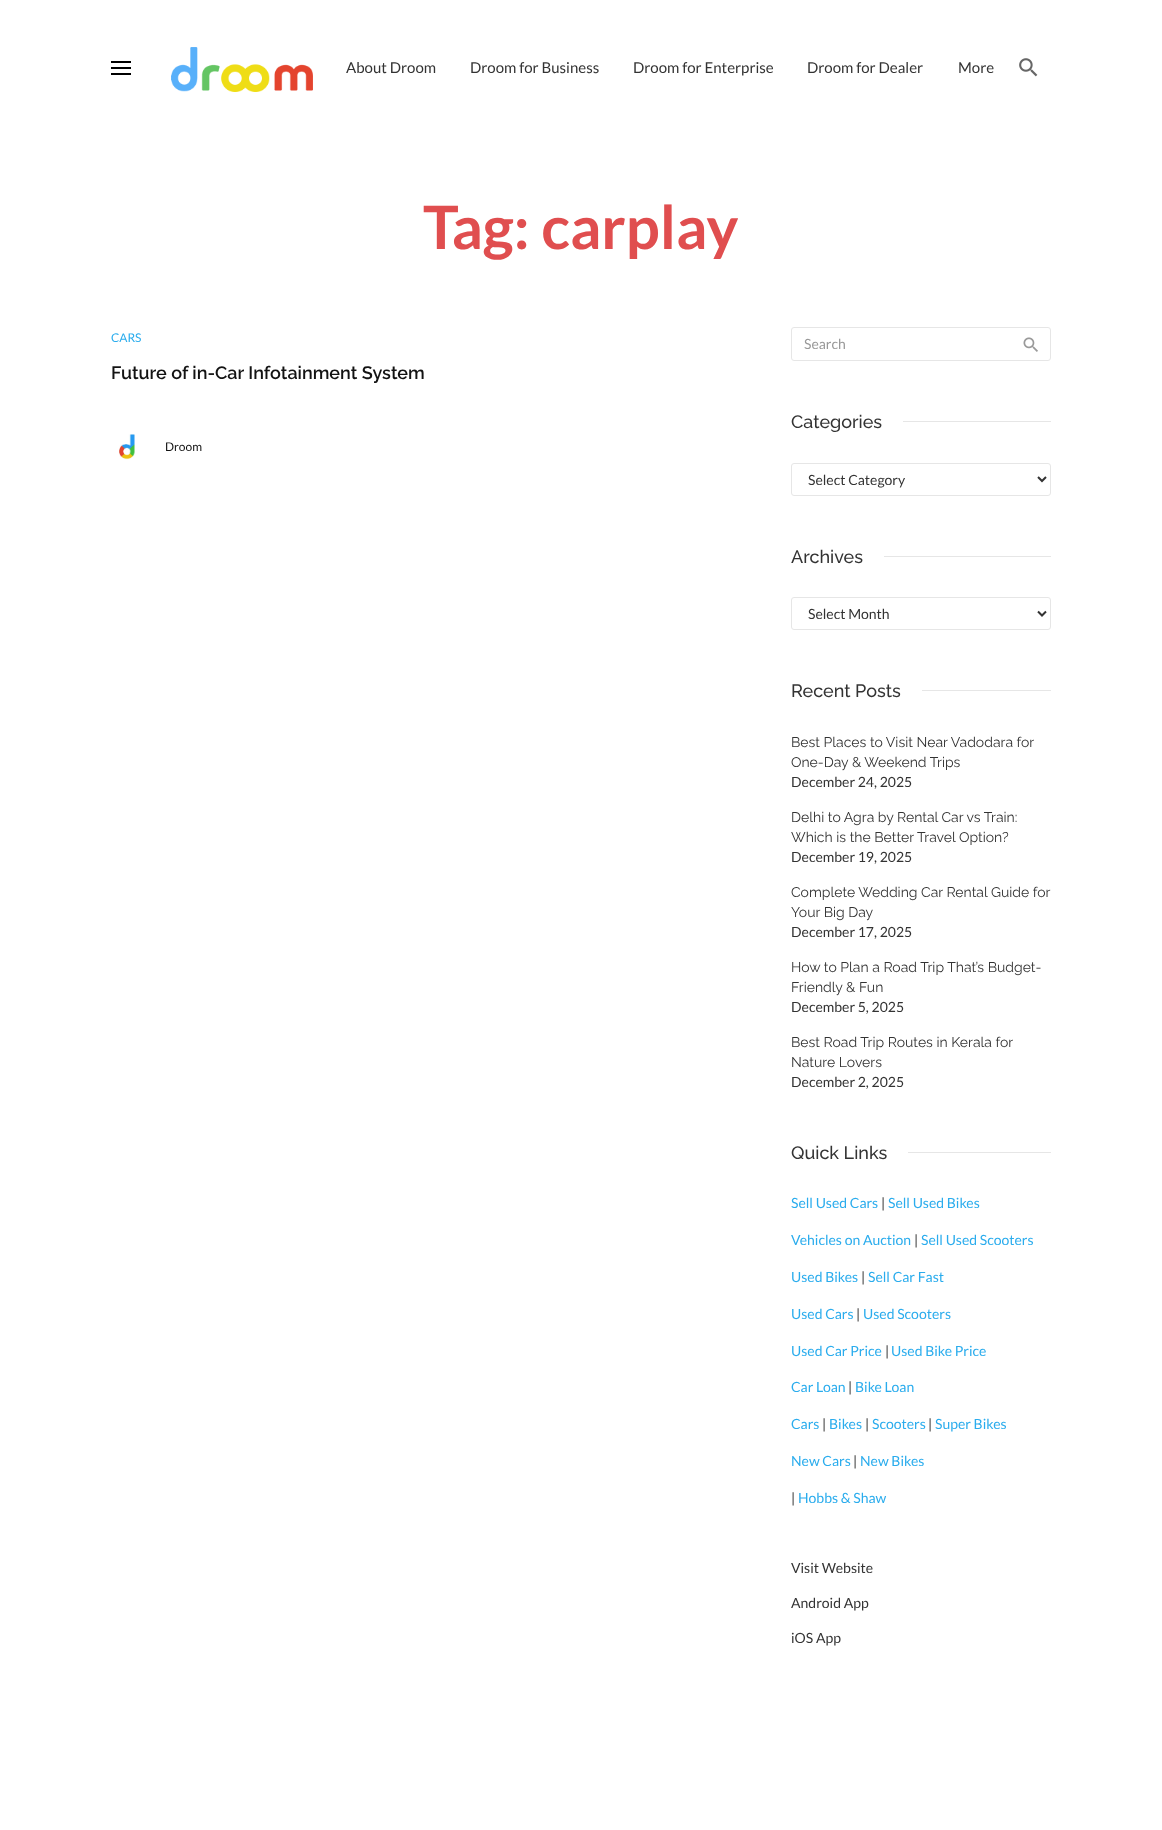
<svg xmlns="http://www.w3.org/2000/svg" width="1162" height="1830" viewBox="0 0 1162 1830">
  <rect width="100%" height="100%" fill="#ffffff"/>
  <rect x="111" y="67" width="20" height="2" fill="#000000"/>
  <rect x="111" y="61" width="20" height="2" fill="#000000"/>
  <rect x="111" y="73" width="20" height="2" fill="#000000"/>
  <image x="171" y="47" width="142" height="45" href="img1.png"/>
  <text x="346" y="73" font-family="Lato" font-size="15" fill="#333333">About Droom</text>
  <text x="470" y="73" font-family="Lato" font-size="15" fill="#333333">Droom for Business</text>
  <text x="633" y="73" font-family="Lato" font-size="15" fill="#333333">Droom for Enterprise</text>
  <text x="807" y="73" font-family="Lato" font-size="15" fill="#333333">Droom for Dealer</text>
  <text x="958" y="73" font-family="Lato" font-size="15" fill="#333333">More</text>
  <image x="1019" y="58" width="19" height="19" href="img2.png"/>
  <text x="423" y="249" font-family="Lato" font-size="60" font-weight="bold" fill="#e04e4f">Tag: carplay</text>
  <text x="111" y="342" font-family="Lato" font-size="12" fill="#2aaced">CARS</text>
  <text x="111" y="379" font-family="Raleway" font-size="18" font-weight="600" fill="#131313">Future of in-Car Infotainment System</text>
  <image x="119" y="434" width="16" height="26" href="img3.png"/>
  <text x="165" y="451" font-family="Lato" font-size="12" fill="#131313">Droom</text>
  <rect x="791.5" y="327.5" width="259" height="33" rx="2.5" fill="none" stroke="#e6e6e6"/>
  <text x="804" y="349" font-family="Lato" font-size="14" fill="#999999">Search</text>
  <image x="1023" y="337" width="15" height="15" href="img4.png"/>
  <text x="791" y="428" font-family="Raleway" font-size="18" font-weight="500" fill="#333333">Categories</text>
  <rect x="903" y="421" width="148" height="1" fill="#e6e6e6"/>
  <rect x="791.5" y="463.5" width="259" height="32" rx="2.5" fill="none" stroke="#e6e6e6"/>
  <path d="M1038 477L1042 481L1046 477" fill="none" stroke="#333333" stroke-width="2"/>
  <text x="808" y="485" font-family="Lato" font-size="14" fill="#333333">Select Category</text>
  <text x="791" y="563" font-family="Raleway" font-size="18" font-weight="500" fill="#333333">Archives</text>
  <rect x="884" y="556" width="167" height="1" fill="#e6e6e6"/>
  <rect x="791.5" y="597.5" width="259" height="32" rx="2.5" fill="none" stroke="#e6e6e6"/>
  <path d="M1038 611.5L1042 615.5L1046 611.5" fill="none" stroke="#333333" stroke-width="2"/>
  <text x="808" y="619" font-family="Lato" font-size="14" fill="#333333">Select Month</text>
  <text x="791" y="697" font-family="Raleway" font-size="18" font-weight="500" fill="#333333">Recent Posts</text>
  <rect x="922" y="690" width="129" height="1" fill="#e6e6e6"/>
  <text x="791" y="747" font-family="Raleway" font-size="14" fill="#333333">Best Places to Visit Near Vadodara for</text>
  <text x="791" y="767" font-family="Raleway" font-size="14" fill="#333333">One-Day &amp; Weekend Trips</text>
  <text x="791" y="787" font-family="Lato" font-size="14" fill="#333333">December 24, 2025</text>
  <text x="791" y="822" font-family="Raleway" font-size="14" fill="#333333">Delhi to Agra by Rental Car vs Train:</text>
  <text x="791" y="842" font-family="Raleway" font-size="14" fill="#333333">Which is the Better Travel Option?</text>
  <text x="791" y="862" font-family="Lato" font-size="14" fill="#333333">December 19, 2025</text>
  <text x="791" y="897" font-family="Raleway" font-size="14" fill="#333333">Complete Wedding Car Rental Guide for</text>
  <text x="791" y="917" font-family="Raleway" font-size="14" fill="#333333">Your Big Day</text>
  <text x="791" y="937" font-family="Lato" font-size="14" fill="#333333">December 17, 2025</text>
  <text x="791" y="972" font-family="Raleway" font-size="14" fill="#333333">How to Plan a Road Trip That’s Budget-</text>
  <text x="791" y="992" font-family="Raleway" font-size="14" fill="#333333">Friendly &amp; Fun</text>
  <text x="791" y="1012" font-family="Lato" font-size="14" fill="#333333">December 5, 2025</text>
  <text x="791" y="1047" font-family="Raleway" font-size="14" fill="#333333">Best Road Trip Routes in Kerala for</text>
  <text x="791" y="1067" font-family="Raleway" font-size="14" fill="#333333">Nature Lovers</text>
  <text x="791" y="1087" font-family="Lato" font-size="14" fill="#333333">December 2, 2025</text>
  <text x="791" y="1159" font-family="Raleway" font-size="18" font-weight="500" fill="#333333">Quick Links</text>
  <rect x="908" y="1152" width="143" height="1" fill="#e6e6e6"/>
  <text x="791" y="1208" font-family="Lato" font-size="14" fill="#2aaced">Sell Used Cars</text>
  <text x="881" y="1208" font-family="Lato" font-size="14" fill="#333333">|</text>
  <text x="888" y="1208" font-family="Lato" font-size="14" fill="#2aaced">Sell Used Bikes</text>
  <text x="791" y="1245" font-family="Lato" font-size="14" fill="#2aaced">Vehicles on Auction</text>
  <text x="914" y="1245" font-family="Lato" font-size="14" fill="#333333">|</text>
  <text x="921" y="1245" font-family="Lato" font-size="14" fill="#2aaced">Sell Used Scooters</text>
  <text x="791" y="1282" font-family="Lato" font-size="14" fill="#2aaced">Used Bikes</text>
  <text x="861" y="1282" font-family="Lato" font-size="14" fill="#333333">|</text>
  <text x="868" y="1282" font-family="Lato" font-size="14" fill="#2aaced">Sell Car Fast</text>
  <text x="791" y="1319" font-family="Lato" font-size="14" fill="#2aaced">Used Cars</text>
  <text x="856" y="1319" font-family="Lato" font-size="14" fill="#333333">|</text>
  <text x="863" y="1319" font-family="Lato" font-size="14" fill="#2aaced">Used Scooters</text>
  <text x="791" y="1356" font-family="Lato" font-size="14" fill="#2aaced">Used Car Price</text>
  <text x="885" y="1356" font-family="Lato" font-size="14" fill="#333333">|</text>
  <text x="891" y="1356" font-family="Lato" font-size="14" fill="#2aaced">Used Bike Price</text>
  <text x="791" y="1392" font-family="Lato" font-size="14" fill="#2aaced">Car Loan</text>
  <text x="848" y="1392" font-family="Lato" font-size="14" fill="#333333">|</text>
  <text x="855" y="1392" font-family="Lato" font-size="14" fill="#2aaced">Bike Loan</text>
  <text x="791" y="1429" font-family="Lato" font-size="14" fill="#2aaced">Cars</text>
  <text x="822" y="1429" font-family="Lato" font-size="14" fill="#333333">|</text>
  <text x="829" y="1429" font-family="Lato" font-size="14" fill="#2aaced">Bikes</text>
  <text x="865" y="1429" font-family="Lato" font-size="14" fill="#333333">|</text>
  <text x="872" y="1429" font-family="Lato" font-size="14" fill="#2aaced">Scooters</text>
  <text x="928" y="1429" font-family="Lato" font-size="14" fill="#333333">|</text>
  <text x="935" y="1429" font-family="Lato" font-size="14" fill="#2aaced">Super Bikes</text>
  <text x="791" y="1466" font-family="Lato" font-size="14" fill="#2aaced">New Cars</text>
  <text x="853" y="1466" font-family="Lato" font-size="14" fill="#333333">|</text>
  <text x="860" y="1466" font-family="Lato" font-size="14" fill="#2aaced">New Bikes</text>
  <text x="791" y="1503" font-family="Lato" font-size="14" fill="#333333">|</text>
  <text x="798" y="1503" font-family="Lato" font-size="14" fill="#2aaced">Hobbs &amp; Shaw</text>
  <text x="791" y="1573" font-family="Lato" font-size="14" fill="#333333">Visit Website</text>
  <text x="791" y="1608" font-family="Lato" font-size="14" fill="#333333">Android App</text>
  <text x="791" y="1643" font-family="Lato" font-size="14" fill="#333333">iOS App</text>
</svg>
